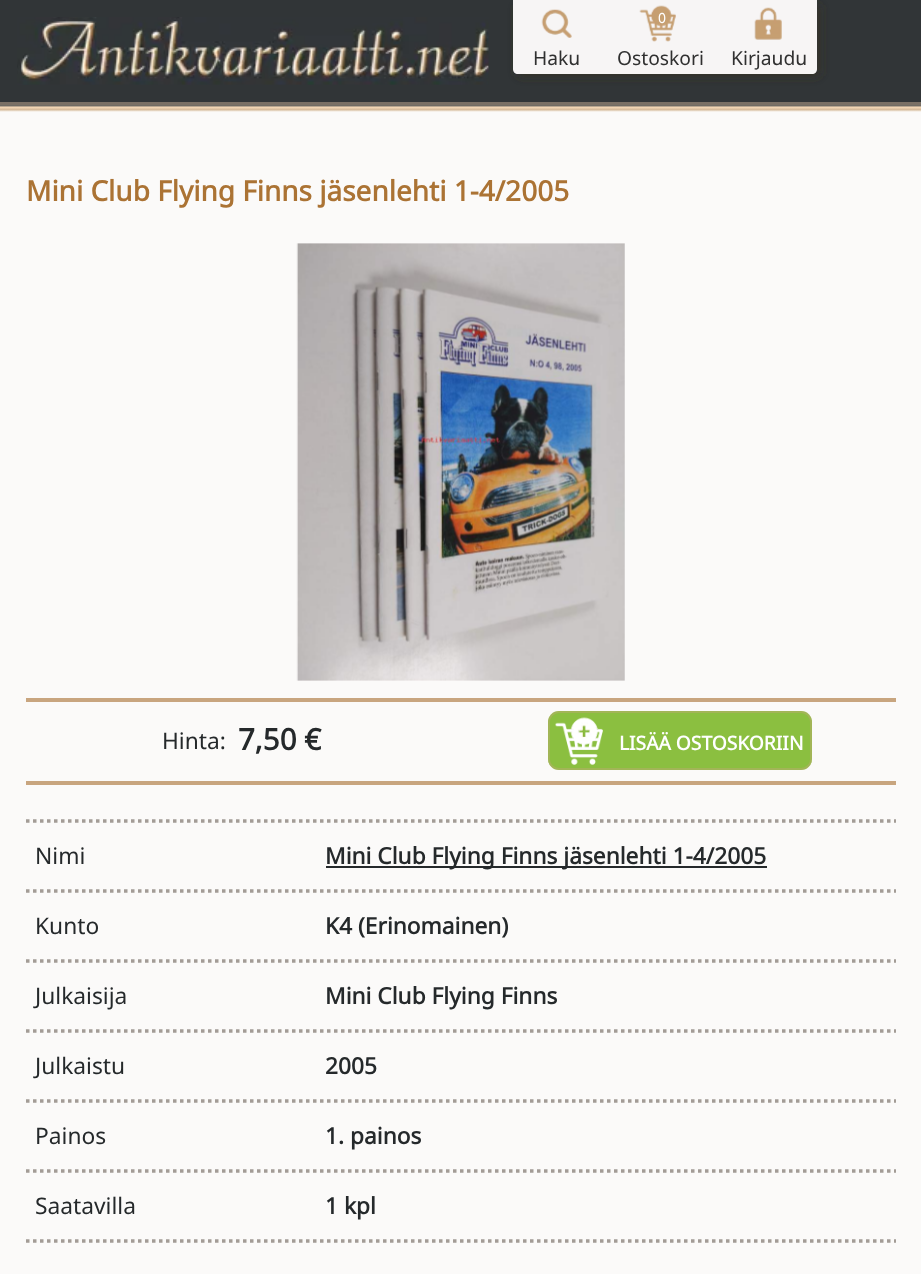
<svg xmlns="http://www.w3.org/2000/svg" width="921" height="1274" viewBox="0 0 921 1274">
  <defs>
    <linearGradient id="g1" gradientUnits="userSpaceOnUse" x1="461" y1="105" x2="461" y2="112"><stop offset="0" stop-color="#4c4e4e"/><stop offset="0.33" stop-color="#f4d7b5"/><stop offset="0.67" stop-color="#d5ba9a"/><stop offset="1" stop-color="#ffffff"/></linearGradient>
    <filter id="blur1" x="-50%" y="-200%" width="200%" height="500%"><feGaussianBlur stdDeviation="5"/></filter>
  </defs>
  <rect width="100%" height="100%" fill="#fbfaf9"/>
  <rect x="0" y="0" width="921" height="102" fill="#313537"/>
  <rect x="0" y="102" width="921" height="3" fill="#7a7065"/>
  <image x="17" y="17" width="472" height="68" href="img1.png"/>
  <rect x="0" y="105" width="921" height="7" fill="url(#g1)"/>
  <rect x="516" y="4" width="305" height="73" rx="5" fill="#382f21" fill-opacity="0.54" filter="url(#blur1)"/>
  <path d="M513 0H817V69C817 72 815 74 812 74H518C515 74 513 72 513 69Z" fill="#f7f5f5"/>
  <image x="541" y="9" width="31" height="29" href="img2.png"/>
  <text x="533" y="65" font-family="Noto Sans" font-size="19.25" fill="#303030">Haku</text>
  <image x="639" y="5" width="37" height="37" href="img3.png"/>
  <text x="658" y="23" font-family="Noto Sans" font-size="14" fill="#ffffff">0</text>
  <text x="617" y="65" font-family="Noto Sans" font-size="19.25" fill="#303030">Ostoskori</text>
  <image x="754" y="7" width="28" height="33" href="img4.png"/>
  <text x="731" y="65" font-family="Noto Sans" font-size="19.25" fill="#303030">Kirjaudu</text>
  <text x="26" y="201" font-family="Noto Sans" font-size="28" font-weight="bold" fill="#ab7334">Mini Club Flying Finns jäsenlehti 1-4/2005</text>
  <image x="296" y="243" width="329" height="438" href="img5.png"/>
  <rect x="26" y="698" width="870" height="4" fill="#c8a57f"/>
  <rect x="26" y="781" width="870" height="4" fill="#c8a57f"/>
  <text x="162" y="749" font-family="Noto Sans" font-size="22.75" fill="#25292b">Hinta:</text>
  <text x="238" y="750" font-family="Noto Sans" font-size="29.5" font-weight="bold" fill="#25292b">7,50 €</text>
  <rect x="548" y="711" width="264" height="59" rx="11" fill="#8bbf40"/>
  <rect x="549" y="712" width="262" height="57" rx="10" fill="none" stroke="#c8a57f" stroke-opacity="0.38" stroke-width="2"/>
  <image x="555" y="717" width="48" height="48" href="img6.png"/>
  <text x="619" y="750" font-family="Noto Sans" font-size="19.25" font-weight="bold" fill="#ffffff">LISÄÄ OSTOSKORIIN</text>
  <path d="M26 821H896" fill="none" stroke="#a39c96" stroke-width="3.5" stroke-dasharray="3.5 3.5"/>
  <text x="35" y="864" font-family="Noto Sans" font-size="22.75" fill="#25292b">Nimi</text>
  <rect x="326" y="866" width="441" height="2" fill="#25292b"/>
  <text x="325" y="864" font-family="Noto Sans" font-size="22.75" font-weight="bold" fill="#25292b">Mini Club Flying Finns jäsenlehti 1-4/2005</text>
  <path d="M26 891H896" fill="none" stroke="#a39c96" stroke-width="3.5" stroke-dasharray="3.5 3.5"/>
  <text x="35" y="934" font-family="Noto Sans" font-size="22.75" fill="#25292b">Kunto</text>
  <text x="325" y="934" font-family="Noto Sans" font-size="22.75" font-weight="bold" fill="#25292b">K4 (Erinomainen)</text>
  <path d="M26 961H896" fill="none" stroke="#a39c96" stroke-width="3.5" stroke-dasharray="3.5 3.5"/>
  <text x="35" y="1004" font-family="Noto Sans" font-size="22.75" fill="#25292b">Julkaisija</text>
  <text x="325" y="1004" font-family="Noto Sans" font-size="22.75" font-weight="bold" fill="#25292b">Mini Club Flying Finns</text>
  <path d="M26 1031H896" fill="none" stroke="#a39c96" stroke-width="3.5" stroke-dasharray="3.5 3.5"/>
  <text x="35" y="1074" font-family="Noto Sans" font-size="22.75" fill="#25292b">Julkaistu</text>
  <text x="325" y="1074" font-family="Noto Sans" font-size="22.75" font-weight="bold" fill="#25292b">2005</text>
  <path d="M26 1101H896" fill="none" stroke="#a39c96" stroke-width="3.5" stroke-dasharray="3.5 3.5"/>
  <text x="35" y="1144" font-family="Noto Sans" font-size="22.75" fill="#25292b">Painos</text>
  <text x="325" y="1144" font-family="Noto Sans" font-size="22.75" font-weight="bold" fill="#25292b">1. painos</text>
  <path d="M26 1171H896" fill="none" stroke="#a39c96" stroke-width="3.5" stroke-dasharray="3.5 3.5"/>
  <text x="35" y="1214" font-family="Noto Sans" font-size="22.75" fill="#25292b">Saatavilla</text>
  <text x="325" y="1214" font-family="Noto Sans" font-size="22.75" font-weight="bold" fill="#25292b">1 kpl</text>
  <path d="M26 1241H896" fill="none" stroke="#a39c96" stroke-width="3.5" stroke-dasharray="3.5 3.5"/>
</svg>
